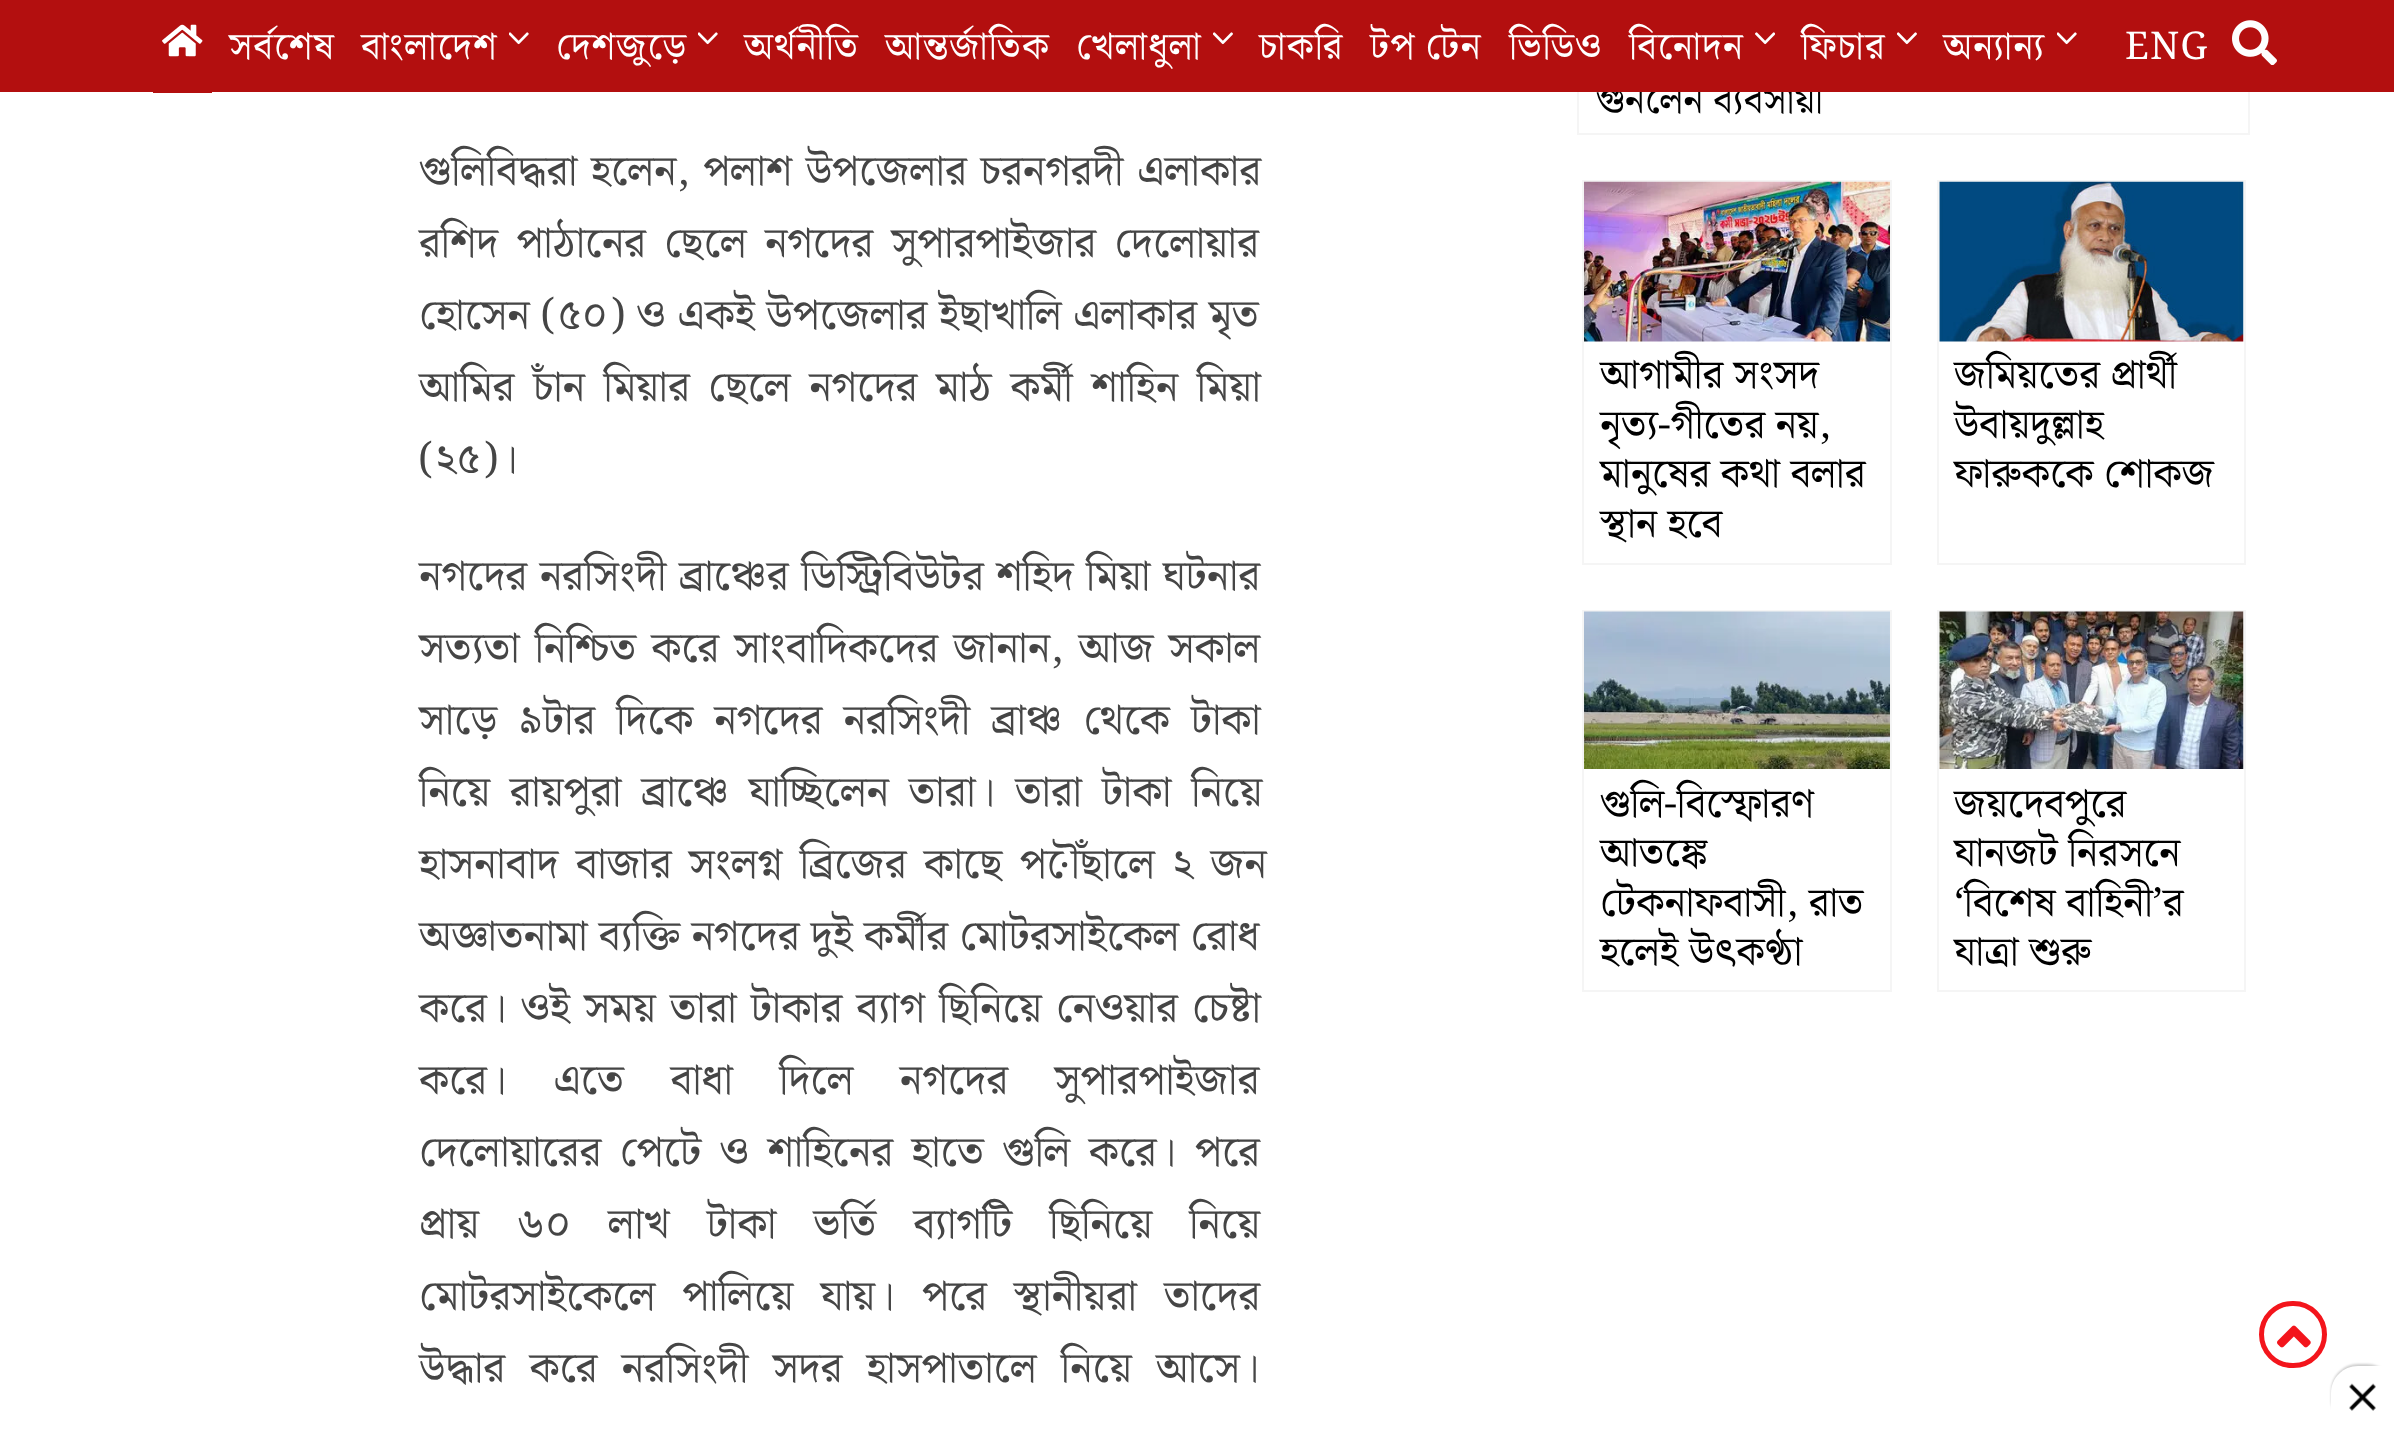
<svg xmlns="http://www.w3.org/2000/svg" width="2394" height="1434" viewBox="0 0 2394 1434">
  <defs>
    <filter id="blur1" x="-50%" y="-200%" width="200%" height="500%"><feGaussianBlur stdDeviation="1"/></filter>
  </defs>
  <rect width="100%" height="100%" fill="#ffffff"/>
  <rect x="1578" y="-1" width="671" height="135" fill="none" stroke="#f5f5f5" stroke-width="2"/>
  <text x="1596" y="113" font-family="Noto Serif Bengali" font-size="38.25" fill="#000000">গুনলেন ব্যবসায়ী</text>
  <rect x="0" y="0" width="2394" height="92" fill="#b30f0f"/>
  <rect x="153" y="92" width="59" height="1" fill="#b30f0f"/>
  <image x="162" y="24" width="41" height="33" href="img1.png"/>
  <text x="229" y="59" font-family="Noto Serif Bengali" font-size="38.25" letter-spacing="1.1" fill="#ffffff">সর্বশেষ</text>
  <text x="361" y="59" font-family="Noto Serif Bengali" font-size="38.25" letter-spacing="1.1" fill="#ffffff">বাংলাদেশ</text>
  <image x="509" y="32" width="20" height="13" href="img2.png"/>
  <text x="556" y="59" font-family="Noto Serif Bengali" font-size="38.25" letter-spacing="1.1" fill="#ffffff">দেশজুড়ে</text>
  <image x="698" y="32" width="20" height="13" href="img2.png"/>
  <text x="744" y="59" font-family="Noto Serif Bengali" font-size="38.25" letter-spacing="1.1" fill="#ffffff">অর্থনীতি</text>
  <text x="885" y="59" font-family="Noto Serif Bengali" font-size="38.25" letter-spacing="1.1" fill="#ffffff">আন্তর্জাতিক</text>
  <text x="1076" y="59" font-family="Noto Serif Bengali" font-size="38.25" letter-spacing="1.1" fill="#ffffff">খেলাধুলা</text>
  <image x="1213" y="32" width="20" height="13" href="img3.png"/>
  <text x="1259" y="59" font-family="Noto Serif Bengali" font-size="38.25" letter-spacing="1.1" fill="#ffffff">চাকরি</text>
  <text x="1370" y="59" word-spacing="-1" font-family="Noto Serif Bengali" font-size="38.25" letter-spacing="1.1" fill="#ffffff">টপ টেন</text>
  <text x="1509" y="59" font-family="Noto Serif Bengali" font-size="38.25" letter-spacing="1.1" fill="#ffffff">ভিডিও</text>
  <text x="1629" y="59" font-family="Noto Serif Bengali" font-size="38.25" letter-spacing="1.1" fill="#ffffff">বিনোদন</text>
  <image x="1755" y="32" width="20" height="13" href="img4.png"/>
  <text x="1801" y="59" font-family="Noto Serif Bengali" font-size="38.25" letter-spacing="1.1" fill="#ffffff">ফিচার</text>
  <image x="1897" y="32" width="20" height="13" href="img3.png"/>
  <text x="1943" y="59" font-family="Noto Serif Bengali" font-size="38.25" letter-spacing="1.1" fill="#ffffff">অন্যান্য</text>
  <image x="2057" y="32" width="20" height="13" href="img2.png"/>
  <text x="2125" y="59" font-family="Noto Serif Bengali" font-size="38.25" letter-spacing="1.1" fill="#ffffff">ENG</text>
  <image x="2232" y="20" width="45" height="45" href="img5.png"/>
  <text x="419" y="185" word-spacing="2.5" font-family="Noto Serif Bengali" font-size="42.75" fill="#454545">গুলিবিদ্ধরা হলেন, পলাশ উপজেলার চরনগরদী এলাকার</text>
  <text x="419" y="257" word-spacing="7.25" font-family="Noto Serif Bengali" font-size="42.75" fill="#454545">রশিদ পাঠানের ছেলে নগদের সুপারপাইজার দেলোয়ার</text>
  <text x="419" y="329" word-spacing="0.5" font-family="Noto Serif Bengali" font-size="42.75" fill="#454545">হোসেন (৫০) ও একই উপজেলার ইছাখালি এলাকার মৃত</text>
  <text x="419" y="401" word-spacing="7.5" font-family="Noto Serif Bengali" font-size="42.75" fill="#454545">আমির চাঁন মিয়ার ছেলে নগদের মাঠ কর্মী শাহিন মিয়া</text>
  <text x="419" y="473" font-family="Noto Serif Bengali" font-size="42.75" fill="#454545">(২৫)।</text>
  <text x="419" y="590" word-spacing="1.5" font-family="Noto Serif Bengali" font-size="42.75" fill="#454545">নগদের নরসিংদী ব্রাঞ্চের ডিস্ট্রিবিউটর শহিদ মিয়া ঘটনার</text>
  <text x="419" y="662" word-spacing="4" font-family="Noto Serif Bengali" font-size="42.75" fill="#454545">সত্যতা নিশ্চিত করে সাংবাদিকদের জানান, আজ সকাল</text>
  <text x="419" y="734" word-spacing="10" font-family="Noto Serif Bengali" font-size="42.75" fill="#454545">সাড়ে ৯টার দিকে নগদের নরসিংদী ব্রাঞ্চ থেকে টাকা</text>
  <text x="419" y="806" word-spacing="8.75" font-family="Noto Serif Bengali" font-size="42.75" fill="#454545">নিয়ে রায়পুরা ব্রাঞ্চে যাচ্ছিলেন তারা। তারা টাকা নিয়ে</text>
  <text x="419" y="878" word-spacing="6.25" font-family="Noto Serif Bengali" font-size="42.75" fill="#454545">হাসনাবাদ বাজার সংলগ্ন ব্রিজের কাছে পৌঁছালে ২ জন</text>
  <text x="419" y="950" word-spacing="0.25" font-family="Noto Serif Bengali" font-size="42.75" fill="#454545">অজ্ঞাতনামা ব্যক্তি নগদের দুই কর্মীর মোটরসাইকেল রোধ</text>
  <text x="419" y="1022" word-spacing="3" font-family="Noto Serif Bengali" font-size="42.75" fill="#454545">করে। ওই সময় তারা টাকার ব্যাগ ছিনিয়ে নেওয়ার চেষ্টা</text>
  <text x="419" y="1094" word-spacing="35.5" font-family="Noto Serif Bengali" font-size="42.75" fill="#454545">করে। এতে বাধা দিলে নগদের সুপারপাইজার</text>
  <text x="419" y="1166" word-spacing="7.5" font-family="Noto Serif Bengali" font-size="42.75" fill="#454545">দেলোয়ারের পেটে ও শাহিনের হাতে গুলি করে। পরে</text>
  <text x="419" y="1238" word-spacing="26" font-family="Noto Serif Bengali" font-size="42.75" fill="#454545">প্রায় ৬০ লাখ টাকা ভর্তি ব্যাগটি ছিনিয়ে নিয়ে</text>
  <text x="419" y="1310" word-spacing="16" font-family="Noto Serif Bengali" font-size="42.75" fill="#454545">মোটরসাইকেলে পালিয়ে যায়। পরে স্থানীয়রা তাদের</text>
  <text x="419" y="1382" word-spacing="13.25" font-family="Noto Serif Bengali" font-size="42.75" fill="#454545">উদ্ধার করে নরসিংদী সদর হাসপাতালে নিয়ে আসে।</text>
  <rect x="1583" y="181" width="308" height="383" fill="none" stroke="#f5f5f5" stroke-width="2"/>
  <image x="1584" y="181" width="306" height="161" href="img6.png"/>
  <text x="1600" y="388" font-family="Noto Serif Bengali" font-size="40.5" fill="#000000">আগামীর সংসদ</text>
  <text x="1600" y="438" font-family="Noto Serif Bengali" font-size="40.5" fill="#000000">নৃত্য-গীতের নয়,</text>
  <text x="1600" y="487" font-family="Noto Serif Bengali" font-size="40.5" fill="#000000">মানুষের কথা বলার</text>
  <text x="1600" y="537" font-family="Noto Serif Bengali" font-size="40.5" fill="#000000">স্থান হবে</text>
  <rect x="1938" y="181" width="307" height="383" fill="none" stroke="#f5f5f5" stroke-width="2"/>
  <image x="1939" y="181" width="305" height="161" href="img7.png"/>
  <text x="1954" y="388" font-family="Noto Serif Bengali" font-size="40.5" fill="#000000">জমিয়তের প্রার্থী</text>
  <text x="1954" y="438" font-family="Noto Serif Bengali" font-size="40.5" fill="#000000">উবায়দুল্লাহ</text>
  <text x="1954" y="487" font-family="Noto Serif Bengali" font-size="40.5" fill="#000000">ফারুককে শোকজ</text>
  <rect x="1583" y="611" width="308" height="380" fill="none" stroke="#f5f5f5" stroke-width="2"/>
  <image x="1584" y="611" width="306" height="158" href="img8.png"/>
  <text x="1600" y="817" font-family="Noto Serif Bengali" font-size="40.5" fill="#000000">গুলি-বিস্ফোরণ</text>
  <text x="1600" y="866" font-family="Noto Serif Bengali" font-size="40.5" fill="#000000">আতঙ্কে</text>
  <text x="1600" y="916" font-family="Noto Serif Bengali" font-size="40.5" fill="#000000">টেকনাফবাসী, রাত</text>
  <text x="1600" y="965" font-family="Noto Serif Bengali" font-size="40.5" fill="#000000">হলেই উৎকণ্ঠা</text>
  <rect x="1938" y="611" width="307" height="380" fill="none" stroke="#f5f5f5" stroke-width="2"/>
  <image x="1939" y="611" width="305" height="158" href="img9.png"/>
  <text x="1954" y="817" font-family="Noto Serif Bengali" font-size="40.5" fill="#000000">জয়দেবপুরে</text>
  <text x="1954" y="866" font-family="Noto Serif Bengali" font-size="40.5" fill="#000000">যানজট নিরসনে</text>
  <text x="1954" y="916" font-family="Noto Serif Bengali" font-size="40.5" fill="#000000">‘বিশেষ বাহিনী’র</text>
  <text x="1954" y="965" font-family="Noto Serif Bengali" font-size="40.5" fill="#000000">যাত্রা শুরু</text>
  <rect x="2261.5" y="1303.5" width="63" height="62" rx="31" fill="none" stroke="#f3151c" stroke-width="5"/>
  <image x="2277" y="1325" width="34" height="23" href="img10.png"/>
  <rect x="2331" y="1364" width="63" height="63" rx="27" fill="#000000" fill-opacity="0.2" filter="url(#blur1)"/>
  <path d="M2358 1366H2394V1429H2331V1393C2331 1378 2343 1366 2358 1366Z" fill="#ffffff"/>
  <image x="2349" y="1383" width="27" height="28" href="img11.png"/>
</svg>
